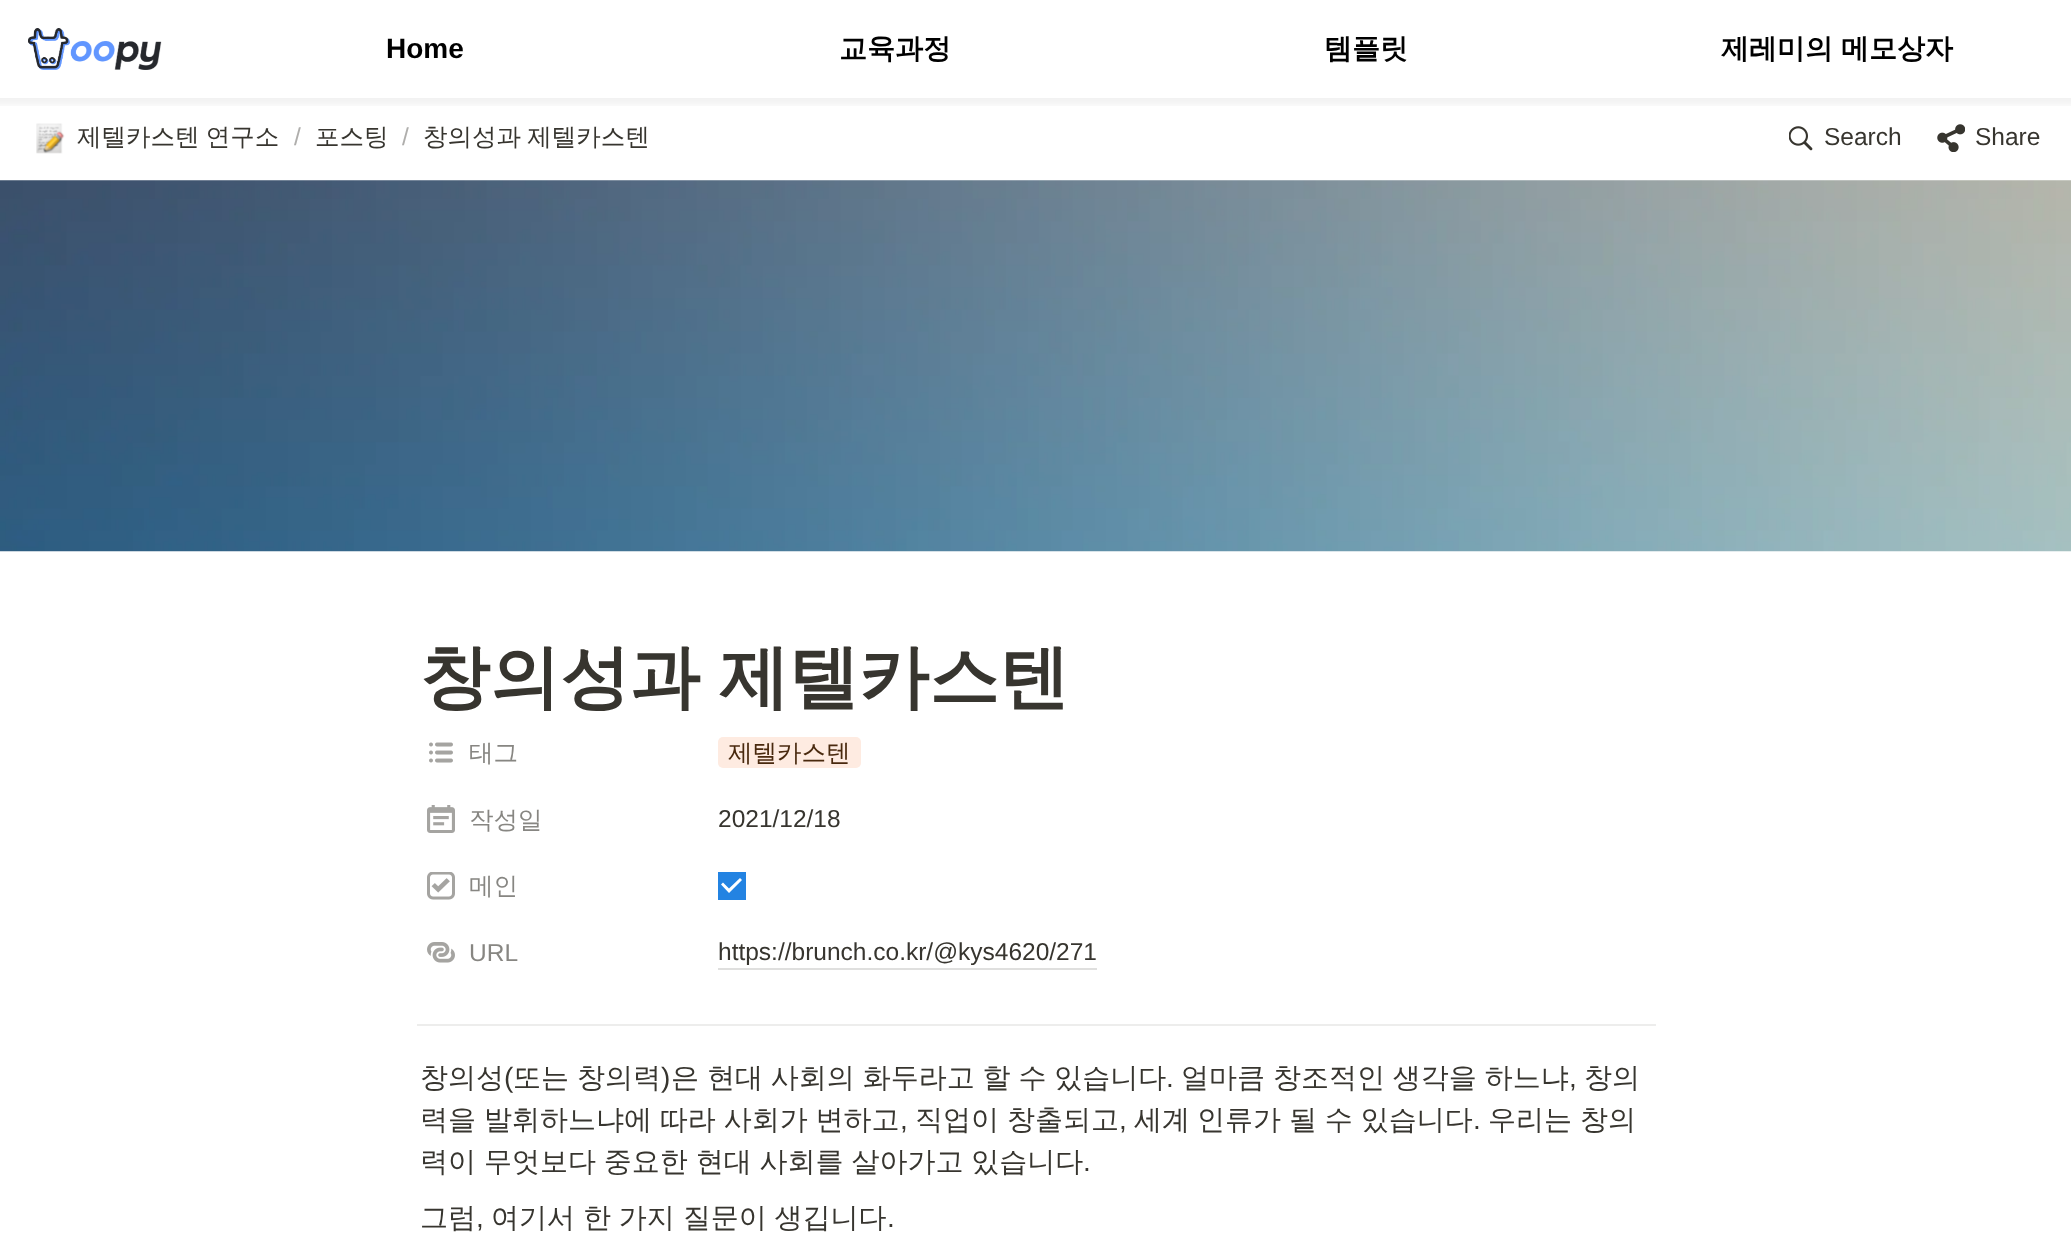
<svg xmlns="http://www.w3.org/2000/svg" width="2071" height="1238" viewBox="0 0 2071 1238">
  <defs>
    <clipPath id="clip1"><rect x="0" y="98" width="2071" height="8"/></clipPath>
    <filter id="blur1" x="-50%" y="-200%" width="200%" height="500%"><feGaussianBlur stdDeviation="3.5"/></filter>
  </defs>
  <rect width="100%" height="100%" fill="#ffffff"/>
  <g clip-path="url(#clip1)">
    <rect x="-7" y="-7" width="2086" height="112" fill="#000000" fill-opacity="0.05" filter="url(#blur1)"/>
  </g>
  <image x="28" y="28" width="134" height="42" href="img1.png"/>
  <text x="386" y="58" font-family="Liberation Sans" font-size="28" font-weight="bold" fill="#000000">Home</text>
  <text x="839" y="58" font-family="WenQuanYi Zen Hei" font-size="28" font-weight="bold" fill="#000000">교육과정</text>
  <text x="1324" y="58" font-family="WenQuanYi Zen Hei" font-size="28" font-weight="bold" fill="#000000">템플릿</text>
  <text x="1721" y="58" word-spacing="-0.5" font-family="WenQuanYi Zen Hei" font-size="28" font-weight="bold" fill="#000000">제레미의 메모상자</text>
  <image x="36" y="123" width="29" height="31" href="img2.png"/>
  <text x="77" y="145" word-spacing="-1" font-family="WenQuanYi Zen Hei" font-size="24.5" font-weight="500" fill="#37352f">제텔카스텐 연구소</text>
  <text x="294" y="145" font-family="Liberation Sans" font-size="24.5" fill="#afaeac">/</text>
  <text x="315" y="145" font-family="WenQuanYi Zen Hei" font-size="24.5" font-weight="500" fill="#37352f">포스팅</text>
  <text x="402" y="145" font-family="Liberation Sans" font-size="24.5" fill="#afaeac">/</text>
  <text x="423" y="145" word-spacing="-1" font-family="WenQuanYi Zen Hei" font-size="24.5" font-weight="500" fill="#37352f">창의성과 제텔카스텐</text>
  <image x="1789" y="126" width="24" height="25" href="img3.png"/>
  <text x="1824" y="145" font-family="Liberation Sans" font-size="24.5" fill="#37352f">Search</text>
  <image x="1937" y="124" width="28" height="28" href="img4.png"/>
  <text x="1975" y="145" font-family="Liberation Sans" font-size="24.5" fill="#37352f">Share</text>
  <image x="0" y="180" width="2071" height="372" href="img5.png"/>
  <text x="420" y="701" word-spacing="-2" font-family="WenQuanYi Zen Hei" font-size="70" font-weight="bold" fill="#37352f">창의성과 제텔카스텐</text>
  <image x="429" y="742" width="24" height="21" href="img6.png"/>
  <text x="469" y="761" font-family="WenQuanYi Zen Hei" font-size="24.5" font-weight="500" fill="#878682">태그</text>
  <rect x="718" y="737" width="143" height="31" rx="5" fill="#feebe1"/>
  <text x="728" y="761" font-family="WenQuanYi Zen Hei" font-size="24.5" font-weight="500" fill="#49290e">제텔카스텐</text>
  <image x="427" y="805" width="28" height="28" href="img7.png"/>
  <text x="469" y="828" font-family="WenQuanYi Zen Hei" font-size="24.5" font-weight="500" fill="#878682">작성일</text>
  <text x="718" y="827" font-family="Liberation Sans" font-size="24.5" fill="#37352f">2021/12/18</text>
  <image x="427" y="872" width="28" height="28" href="img8.png"/>
  <text x="469" y="894" font-family="WenQuanYi Zen Hei" font-size="24.5" font-weight="500" fill="#878682">메인</text>
  <rect x="718" y="872" width="28" height="28" fill="#2383e2"/>
  <path d="M729 893L742 880L740 878L729 888.5L723 882.5L721 884.5Z" fill="#ffffff"/>
  <image x="427" y="942" width="28" height="21" href="img9.png"/>
  <text x="469" y="961" font-family="Liberation Sans" font-size="24.5" fill="#878682">URL</text>
  <rect x="718" y="968" width="379" height="2" fill="#dfdfde"/>
  <text x="718" y="960" font-family="Liberation Sans" font-size="24.5" fill="#37352f">https://brunch.co.kr/@kys4620/271</text>
  <rect x="417" y="1024" width="1239" height="2" fill="#ededec"/>
  <text x="420" y="1087" font-family="WenQuanYi Zen Hei" font-size="28" font-weight="500" fill="#37352f">창의성</text>
  <text x="504" y="1087" font-family="Liberation Sans" font-size="28" fill="#37352f">(</text>
  <text x="513" y="1087" word-spacing="-0.5" font-family="WenQuanYi Zen Hei" font-size="28" font-weight="500" fill="#37352f">또는 창의력</text>
  <text x="661" y="1087" font-family="Liberation Sans" font-size="28" fill="#37352f">)</text>
  <text x="671" y="1087" word-spacing="-0.5" font-family="WenQuanYi Zen Hei" font-size="28" font-weight="500" fill="#37352f">은 현대 사회의 화두라고 할 수 있습니다</text>
  <text x="1166" y="1087" font-family="Liberation Sans" font-size="28" fill="#37352f">.</text>
  <text x="1181" y="1087" word-spacing="-0.5" font-family="WenQuanYi Zen Hei" font-size="28" font-weight="500" fill="#37352f">얼마큼 창조적인 생각을 하느냐</text>
  <text x="1569" y="1087" font-family="Liberation Sans" font-size="28" fill="#37352f">,</text>
  <text x="1584" y="1087" font-family="WenQuanYi Zen Hei" font-size="28" font-weight="500" fill="#37352f">창의</text>
  <text x="420" y="1129" word-spacing="-0.5" font-family="WenQuanYi Zen Hei" font-size="28" font-weight="500" fill="#37352f">력을 발휘하느냐에 따라 사회가 변하고</text>
  <text x="900" y="1129" font-family="Liberation Sans" font-size="28" fill="#37352f">,</text>
  <text x="915" y="1129" word-spacing="-0.5" font-family="WenQuanYi Zen Hei" font-size="28" font-weight="500" fill="#37352f">직업이 창출되고</text>
  <text x="1119" y="1129" font-family="Liberation Sans" font-size="28" fill="#37352f">,</text>
  <text x="1134" y="1129" font-family="WenQuanYi Zen Hei" font-size="28" font-weight="500" fill="#37352f">세계</text>
  <text x="1197" y="1129" word-spacing="-0.5" font-family="WenQuanYi Zen Hei" font-size="28" font-weight="500" fill="#37352f">인류가 될 수 있습니다</text>
  <text x="1473" y="1129" font-family="Liberation Sans" font-size="28" fill="#37352f">.</text>
  <text x="1488" y="1129" word-spacing="-0.5" font-family="WenQuanYi Zen Hei" font-size="28" font-weight="500" fill="#37352f">우리는 창의</text>
  <text x="420" y="1171" word-spacing="-0.5" font-family="WenQuanYi Zen Hei" font-size="28" font-weight="500" fill="#37352f">력이 무엇보다 중요한 현대 사회를 살아가고 있습니다</text>
  <text x="1083" y="1171" font-family="Liberation Sans" font-size="28" fill="#37352f">.</text>
  <text x="420" y="1227" font-family="WenQuanYi Zen Hei" font-size="28" font-weight="500" fill="#37352f">그럼</text>
  <text x="476" y="1227" font-family="Liberation Sans" font-size="28" fill="#37352f">,</text>
  <text x="491" y="1227" word-spacing="-0.5" font-family="WenQuanYi Zen Hei" font-size="28" font-weight="500" fill="#37352f">여기서 한 가지 질문이 생깁니다</text>
  <text x="887" y="1227" font-family="Liberation Sans" font-size="28" fill="#37352f">.</text>
</svg>
